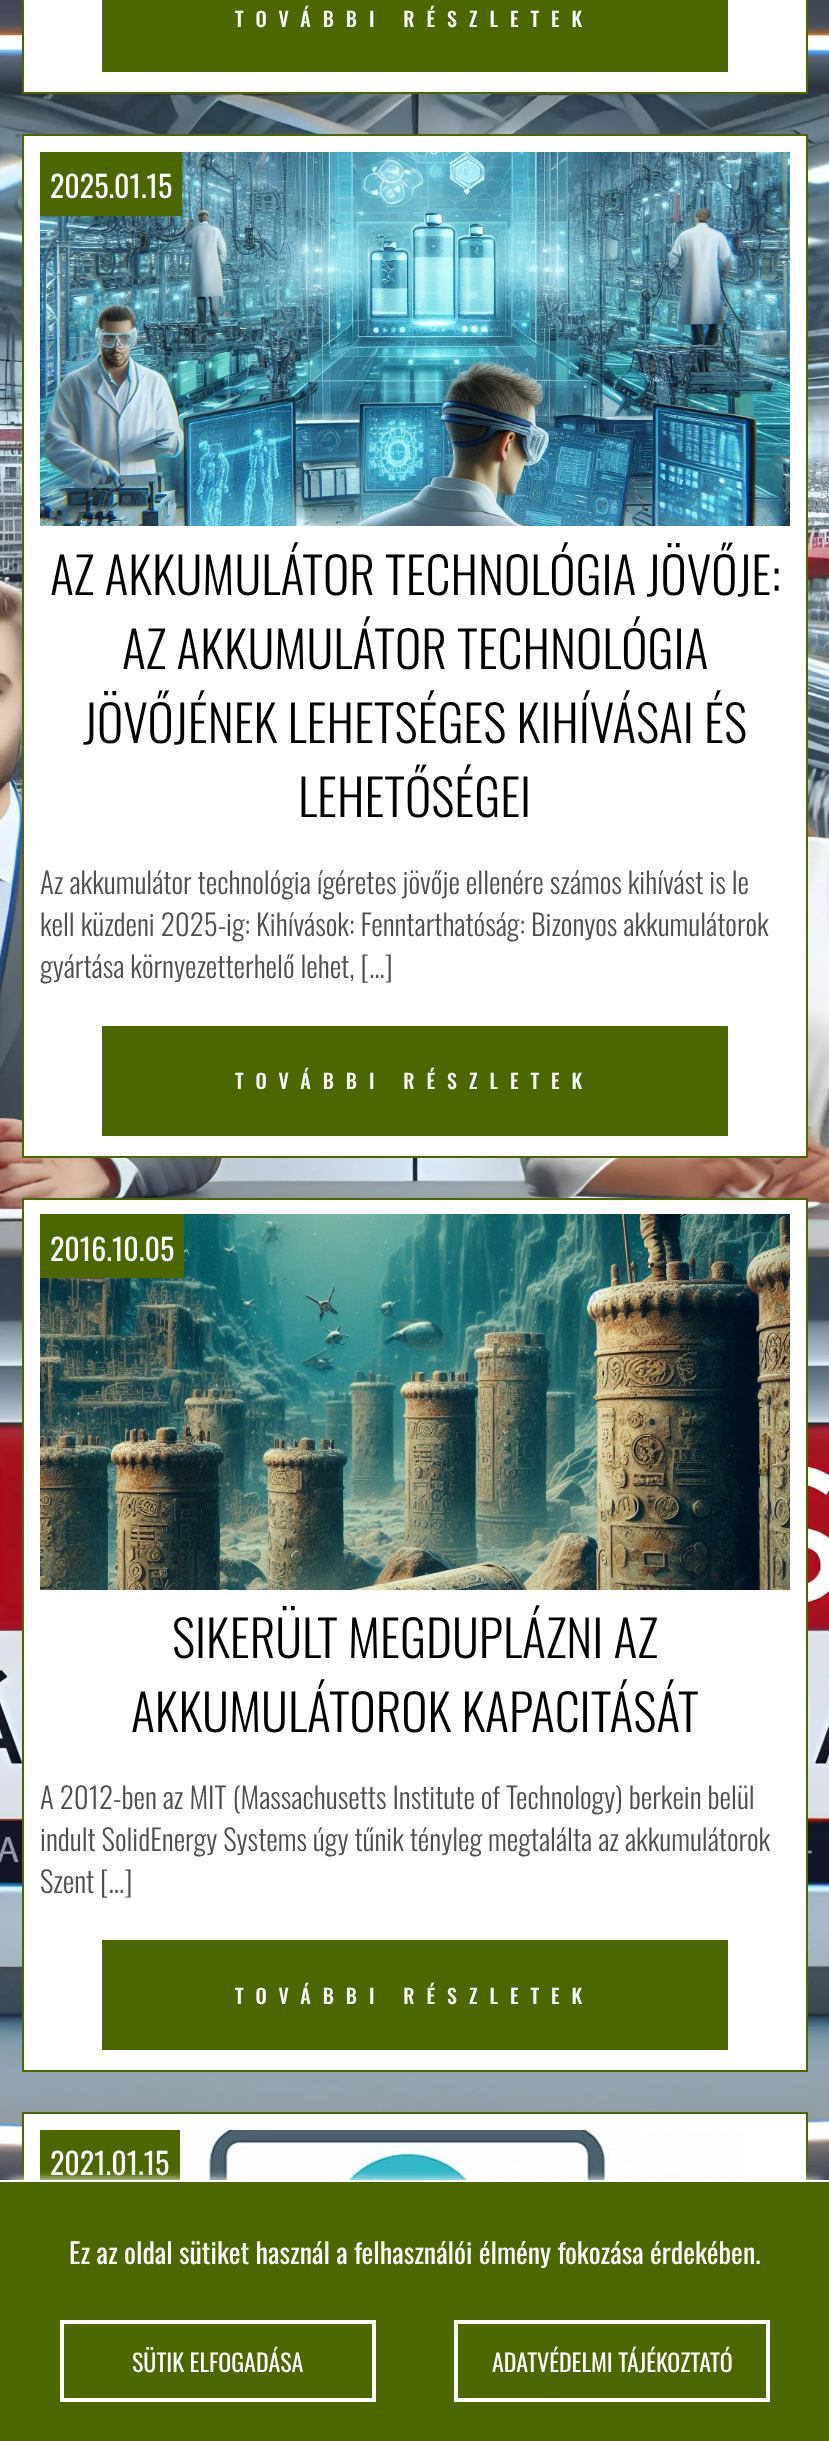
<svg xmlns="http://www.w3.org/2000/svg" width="829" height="2441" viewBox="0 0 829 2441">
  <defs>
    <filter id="blur1" x="-50%" y="-200%" width="200%" height="500%"><feGaussianBlur stdDeviation="5"/></filter>
  </defs>
  <rect width="100%" height="100%" fill="#ffffff"/>
  <image x="0" y="0" width="829" height="2180" href="img1.png"/>
  <rect x="23" y="-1" width="784" height="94" fill="#ffffff" stroke="#4c6600" stroke-width="2"/>
  <rect x="102" y="0" width="626" height="72" fill="#4c6600"/>
  <text x="235" y="27" font-family="Oswald" font-size="20" font-weight="500" letter-spacing="12" fill="#ffffff">TOVÁBBI RÉSZLETEK</text>
  <rect x="23" y="135" width="784" height="1022" fill="#ffffff" stroke="#4c6600" stroke-width="2"/>
  <image x="40" y="152" width="750" height="374" href="img2.png"/>
  <rect x="40" y="152" width="142" height="64" fill="#4c6600"/>
  <text x="50" y="198" font-family="Oswald" font-size="30" fill="#ffffff">2025.01.15</text>
  <text x="50" y="595" font-family="Oswald" font-size="50" font-weight="300" fill="#000000">AZ AKKUMULÁTOR TECHNOLÓGIA JÖVŐJE:</text>
  <text x="122" y="669" font-family="Oswald" font-size="50" font-weight="300" fill="#000000">AZ AKKUMULÁTOR TECHNOLÓGIA</text>
  <text x="83" y="743" font-family="Oswald" font-size="50" font-weight="300" fill="#000000">JÖVŐJÉNEK LEHETSÉGES KIHÍVÁSAI ÉS</text>
  <text x="298" y="817" font-family="Oswald" font-size="50" font-weight="300" fill="#000000">LEHETŐSÉGEI</text>
  <text x="40" y="894" font-family="Oswald" font-size="29" font-weight="300" fill="#4d4d4d">Az akkumulátor technológia ígéretes jövője ellenére számos kihívást is le</text>
  <text x="40" y="936" font-family="Oswald" font-size="29" font-weight="300" fill="#4d4d4d">kell küzdeni 2025-ig: Kihívások: Fenntarthatóság: Bizonyos akkumulátorok</text>
  <text x="40" y="978" font-family="Oswald" font-size="29" font-weight="300" fill="#4d4d4d">gyártása környezetterhelő lehet, […]</text>
  <rect x="102" y="1026" width="626" height="110" fill="#4c6600"/>
  <text x="235" y="1089" font-family="Oswald" font-size="20" font-weight="500" letter-spacing="12" fill="#ffffff">TOVÁBBI RÉSZLETEK</text>
  <rect x="23" y="1199" width="784" height="872" fill="#ffffff" stroke="#4c6600" stroke-width="2"/>
  <image x="40" y="1214" width="750" height="376" href="img3.png"/>
  <rect x="40" y="1214" width="144" height="64" fill="#4c6600"/>
  <text x="50" y="1261" font-family="Oswald" font-size="30" fill="#ffffff">2016.10.05</text>
  <text x="172" y="1658" font-family="Oswald" font-size="50" font-weight="300" fill="#000000">SIKERÜLT MEGDUPLÁZNI AZ</text>
  <text x="131" y="1732" font-family="Oswald" font-size="50" font-weight="300" fill="#000000">AKKUMULÁTOROK KAPACITÁSÁT</text>
  <text x="40" y="1809" font-family="Oswald" font-size="29" font-weight="300" fill="#4d4d4d">A 2012-ben az MIT (Massachusetts Institute of Technology) berkein belül</text>
  <text x="40" y="1851" font-family="Oswald" font-size="29" font-weight="300" fill="#4d4d4d">indult SolidEnergy Systems úgy tűnik tényleg megtalálta az akkumulátorok</text>
  <text x="40" y="1893" font-family="Oswald" font-size="29" font-weight="300" fill="#4d4d4d">Szent […]</text>
  <rect x="102" y="1940" width="626" height="110" fill="#4c6600"/>
  <text x="235" y="2004" font-family="Oswald" font-size="20" font-weight="500" letter-spacing="12" fill="#ffffff">TOVÁBBI RÉSZLETEK</text>
  <rect x="24" y="2114" width="782" height="66" fill="#ffffff"/>
  <rect x="23" y="2113" width="784" height="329" fill="none" stroke="#4c6600" stroke-width="2"/>
  <image x="180" y="2130" width="565" height="50" href="img4.png"/>
  <rect x="40" y="2130" width="140" height="50" fill="#4c6600"/>
  <text x="50" y="2175" font-family="Oswald" font-size="30" fill="#ffffff">2021.01.15</text>
  <rect x="10" y="2180" width="810" height="242" fill="#ffffff" filter="url(#blur1)"/>
  <rect x="0" y="2182" width="829" height="259" fill="#4c6600"/>
  <rect x="22" y="2180" width="786" height="2" fill="#ffffff"/>
  <text x="69" y="2264" font-family="Oswald" font-size="28" fill="#ffffff">Ez az oldal sütiket használ a felhasználói élmény fokozása érdekében.</text>
  <rect x="62" y="2322" width="312" height="78" fill="none" stroke="#ffffff" stroke-width="4"/>
  <text x="132" y="2372" font-family="Oswald" font-size="24" fill="#ffffff">SÜTIK ELFOGADÁSA</text>
  <rect x="456" y="2322" width="312" height="78" fill="none" stroke="#ffffff" stroke-width="4"/>
  <text x="492" y="2372" font-family="Oswald" font-size="24" fill="#ffffff">ADATVÉDELMI TÁJÉKOZTATÓ</text>
</svg>
